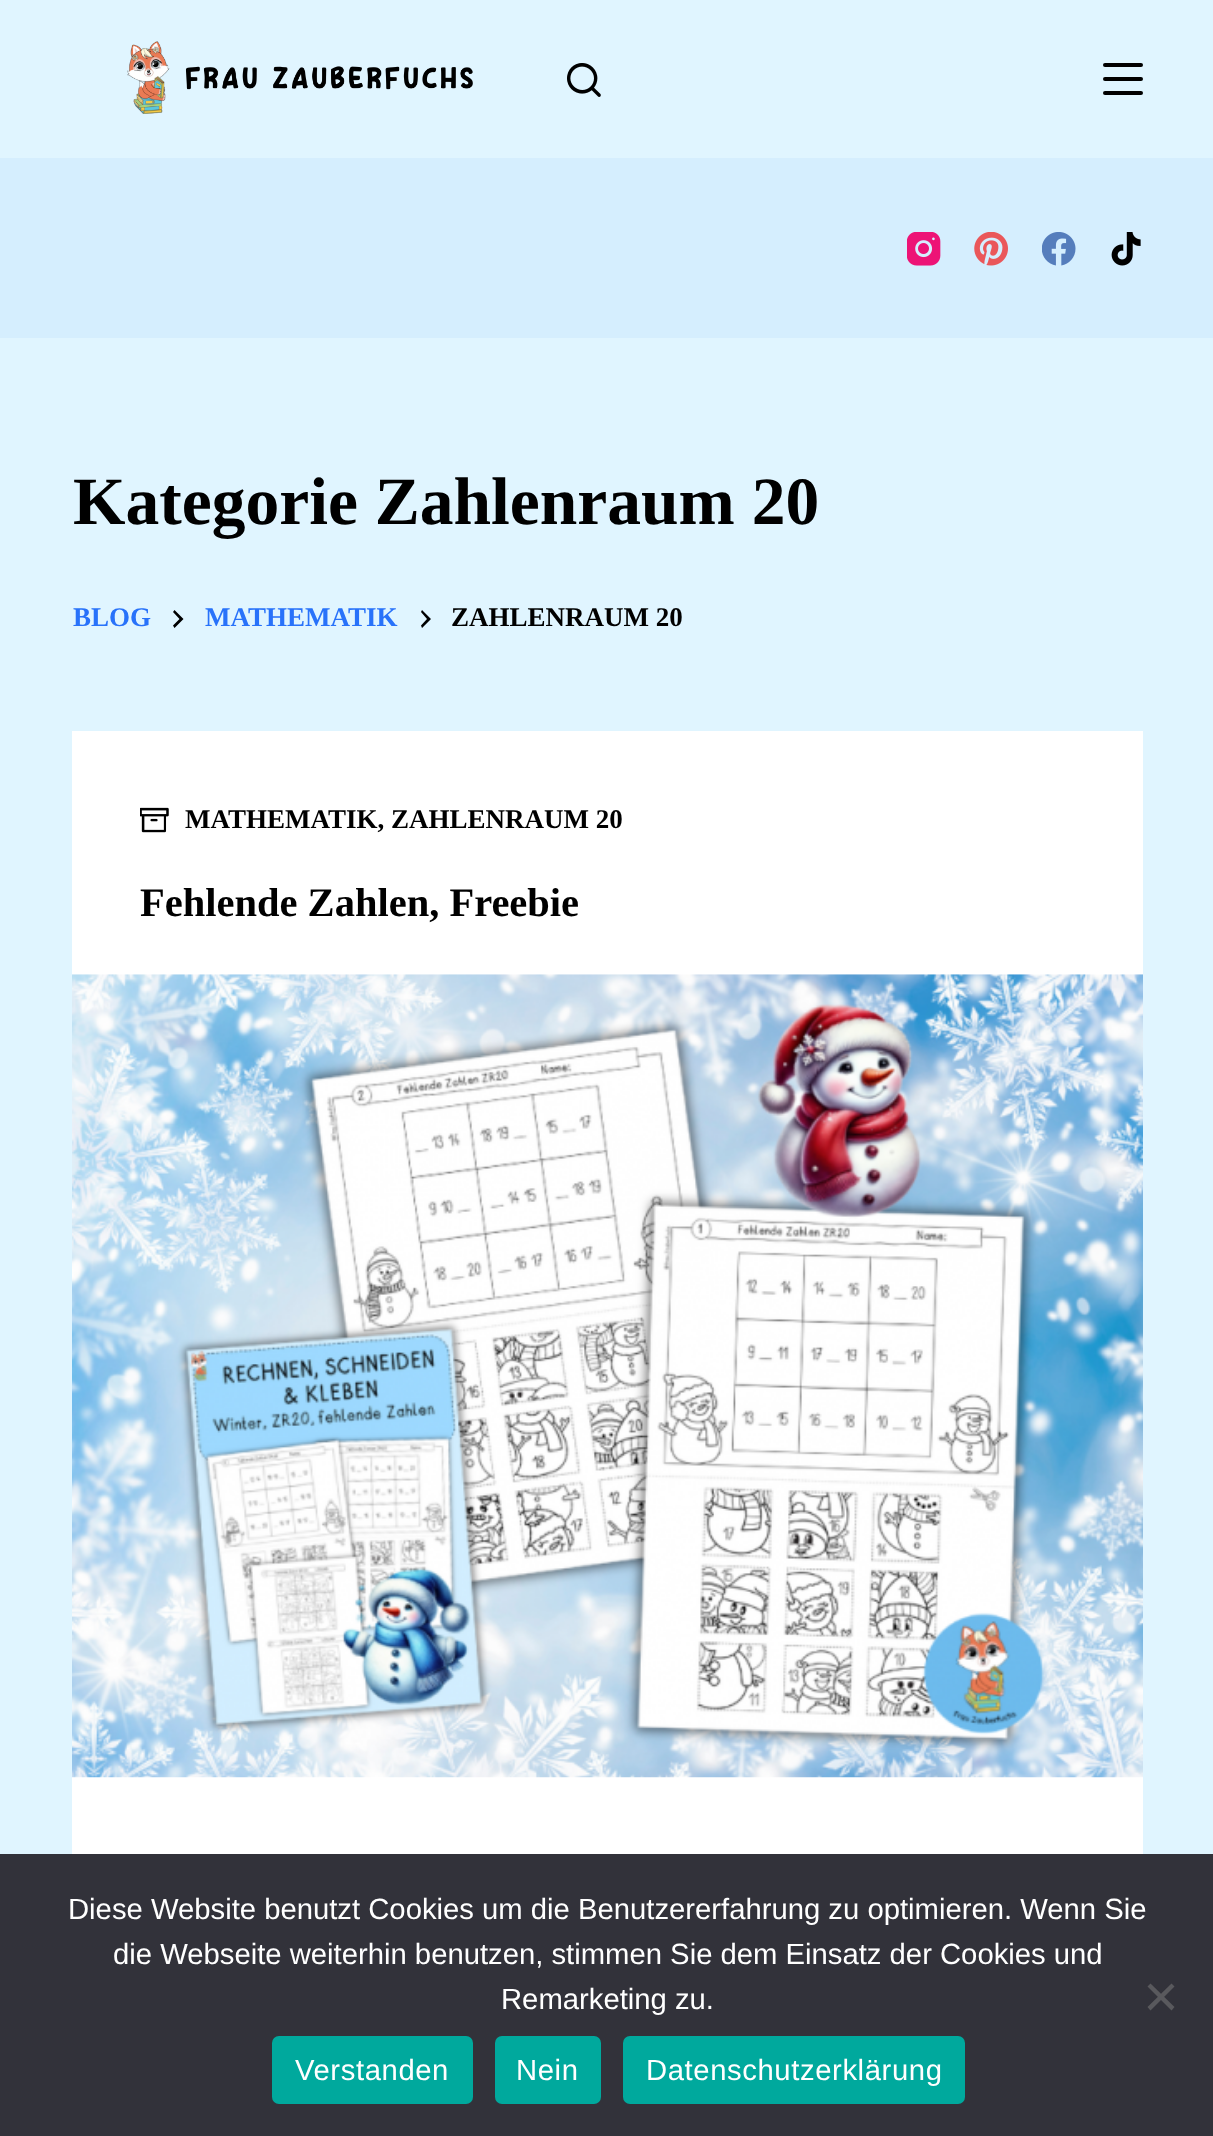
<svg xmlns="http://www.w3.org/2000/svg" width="1213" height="2136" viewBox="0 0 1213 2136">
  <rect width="100%" height="100%" fill="#e0f5ff"/>
  <image x="127" y="41" width="346" height="73" href="img1.png"/>
  <image x="567" y="63" width="34" height="34" href="img2.png"/>
  <rect x="1103" y="63" width="40" height="4" rx="2" fill="#000000"/>
  <rect x="1103" y="77" width="40" height="4" rx="2" fill="#000000"/>
  <rect x="1103" y="91" width="40" height="4" rx="2" fill="#000000"/>
  <rect x="0" y="158" width="1213" height="180" fill="#d5eefe"/>
  <image x="907" y="232" width="34" height="34" href="img3.png"/>
  <image x="974" y="232" width="34" height="34" href="img4.png"/>
  <image x="1042" y="232" width="34" height="34" href="img5.png"/>
  <image x="1111" y="232" width="30" height="34" href="img6.png"/>
  <text x="73" y="524" font-family="Liberation Serif" font-size="67.5" font-weight="bold" fill="#000000">Kategorie Zahlenraum 20</text>
  <text x="73" y="626" font-family="Liberation Serif" font-size="27" font-weight="bold" fill="#2872fa">BLOG</text>
  <path d="M173 625.5L179.5 619L173 612L174.5 610L183.5 619L174.5 628Z" fill="#000000"/>
  <text x="205" y="626" font-family="Liberation Serif" font-size="27" font-weight="bold" fill="#2872fa">MATHEMATIK</text>
  <path d="M421 625.5L427 619L421 612L422 610L431 619L422 628Z" fill="#000000"/>
  <text x="451" y="626" font-family="Liberation Serif" font-size="27" font-weight="bold" fill="#000000">ZAHLENRAUM 20</text>
  <rect x="72" y="731" width="1071" height="1123" fill="#ffffff"/>
  <image x="140" y="807" width="29" height="26" href="img7.png"/>
  <text x="185" y="828" font-family="Liberation Serif" font-size="27" font-weight="bold" fill="#000000">MATHEMATIK, ZAHLENRAUM 20</text>
  <text x="140" y="916" font-family="Liberation Serif" font-size="40.5" font-weight="bold" fill="#000000">Fehlende Zahlen, Freebie</text>
  <image x="72" y="974" width="1071" height="804" href="img8.png"/>
  <rect x="0" y="1854" width="1213" height="282" fill="#32323a"/>
  <text x="68" y="1919" font-family="Liberation Sans" font-size="29.25" fill="#ffffff">Diese Website benutzt Cookies um die Benutzererfahrung zu optimieren. Wenn Sie</text>
  <text x="113" y="1964" font-family="Liberation Sans" font-size="29.25" fill="#ffffff">die Webseite weiterhin benutzen, stimmen Sie dem Einsatz der Cookies und</text>
  <text x="501" y="2009" font-family="Liberation Sans" font-size="29.25" fill="#ffffff">Remarketing zu.</text>
  <path d="M1171.5 1983.5L1174.5 1986.5L1150.5 2010.5L1147.5 2007Z" fill="#59595d"/>
  <path d="M1147.5 1986.5L1150.5 1983.5L1174.5 2007L1171.5 2010.5Z" fill="#59595d"/>
  <rect x="272" y="2036" width="201" height="68" rx="7" fill="#00a99d"/>
  <text x="295" y="2080" font-family="Liberation Sans" font-size="29.25" letter-spacing="0.6" fill="#ffffff">Verstanden</text>
  <rect x="495" y="2036" width="106" height="68" rx="7" fill="#00a99d"/>
  <text x="516" y="2080" font-family="Liberation Sans" font-size="29.25" letter-spacing="0.6" fill="#ffffff">Nein</text>
  <rect x="623" y="2036" width="342" height="68" rx="7" fill="#00a99d"/>
  <text x="646" y="2080" font-family="Liberation Sans" font-size="29.25" letter-spacing="0.6" fill="#ffffff">Datenschutzerklärung</text>
</svg>
